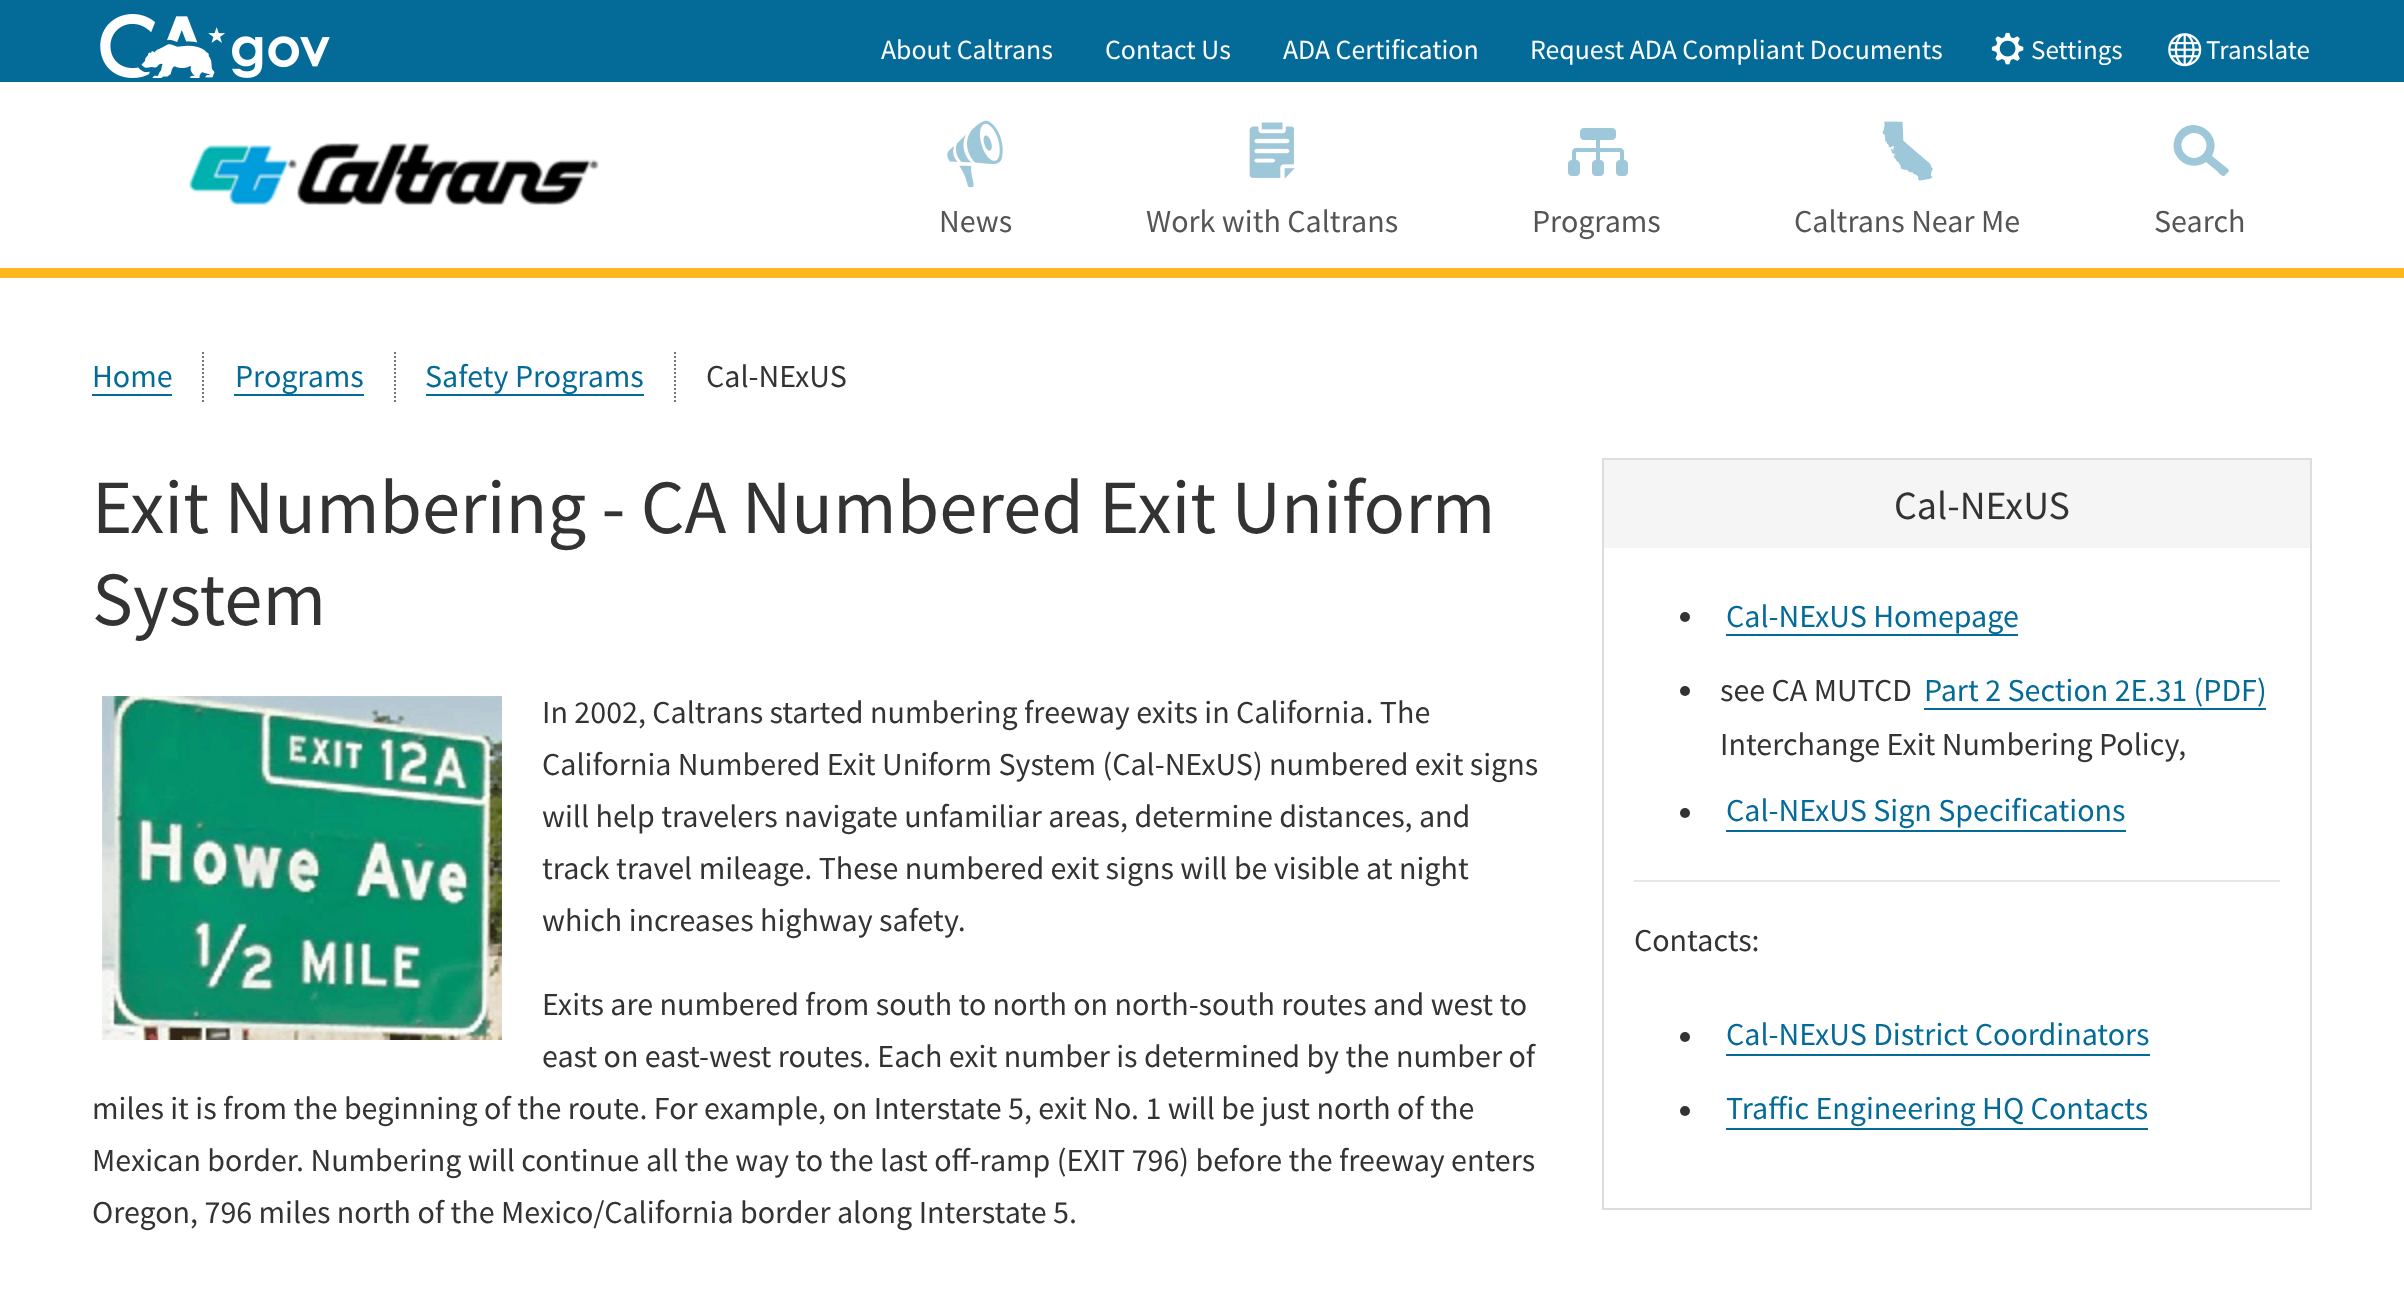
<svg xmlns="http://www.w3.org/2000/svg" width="2404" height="1298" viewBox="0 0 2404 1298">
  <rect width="100%" height="100%" fill="#ffffff"/>
  <rect x="0" y="0" width="2404" height="82" fill="#046b99"/>
  <image x="100" y="14" width="230" height="64" href="img1.png"/>
  <text x="881" y="59" font-family="Source Sans Pro" font-size="27.8" fill="#ffffff">About Caltrans</text>
  <text x="1105" y="59" font-family="Source Sans Pro" font-size="27.8" fill="#ffffff">Contact Us</text>
  <text x="1283" y="59" font-family="Source Sans Pro" font-size="27.8" fill="#ffffff">ADA Certification</text>
  <text x="1530" y="59" font-family="Source Sans Pro" font-size="27.8" fill="#ffffff">Request ADA Compliant Documents</text>
  <image x="1991" y="32" width="33" height="33" href="img2.png"/>
  <text x="2031" y="59" font-family="Source Sans Pro" font-size="27" fill="#ffffff">Settings</text>
  <image x="2168" y="33" width="34" height="34" href="img3.png"/>
  <text x="2206" y="59" font-family="Source Sans Pro" font-size="27" fill="#ffffff">Translate</text>
  <image x="189" y="143" width="410" height="63" href="img4.png"/>
  <rect x="0" y="268" width="2404" height="10" fill="#fdb81e"/>
  <image x="947" y="120" width="56" height="68" href="img5.png"/>
  <text x="939" y="232" font-family="Source Sans Pro" font-size="32" fill="#555555">News</text>
  <image x="1249" y="122" width="46" height="57" href="img6.png"/>
  <text x="1146" y="232" font-family="Source Sans Pro" font-size="32" fill="#555555">Work with Caltrans</text>
  <image x="1568" y="128" width="60" height="48" href="img7.png"/>
  <text x="1532" y="232" font-family="Source Sans Pro" font-size="32" fill="#555555">Programs</text>
  <image x="1882" y="121" width="51" height="60" href="img8.png"/>
  <text x="1794" y="232" font-family="Source Sans Pro" font-size="32" fill="#555555">Caltrans Near Me</text>
  <path d="M2228 169L2212 156C2225 131 2187 111 2175 138C2173 143 2173 150 2176 155C2182 166 2196 169 2206 162L2217 171C2220 174 2223 179 2226 174C2228 173 2230 171 2228 169ZM2203 154C2191 166 2174 148 2185 137C2197 125 2214 142 2203 154Z" fill="#9fc7da"/>
  <text x="2154" y="232" font-family="Source Sans Pro" font-size="32" fill="#555555">Search</text>
  <text x="92" y="387" font-family="Source Sans Pro" font-size="32" fill="#046b99">Home</text>
  <rect x="92" y="394" width="80" height="2" fill="#046b99"/>
  <path d="M203 352V402" fill="none" stroke="#777777" stroke-width="2" stroke-dasharray="2 2"/>
  <rect x="234" y="394" width="130" height="2" fill="#046b99"/>
  <text x="235" y="387" font-family="Source Sans Pro" font-size="32" fill="#046b99">Programs</text>
  <path d="M395 352V402" fill="none" stroke="#777777" stroke-width="2" stroke-dasharray="2 2"/>
  <rect x="426" y="394" width="218" height="2" fill="#046b99"/>
  <text x="425" y="387" font-family="Source Sans Pro" font-size="32" fill="#046b99">Safety Programs</text>
  <path d="M675 352V402" fill="none" stroke="#777777" stroke-width="2" stroke-dasharray="2 2"/>
  <text x="706" y="387" font-family="Source Sans Pro" font-size="32" fill="#333333">Cal-NExUS</text>
  <text x="92" y="533" font-family="Source Sans Pro" font-size="76.75" fill="#333333">Exit Numbering - CA Numbered Exit Uniform</text>
  <text x="92" y="625" font-family="Source Sans Pro" font-size="76.75" fill="#333333">System</text>
  <image x="102" y="696" width="400" height="344" href="img9.png"/>
  <text x="542" y="723" font-family="Source Sans Pro" font-size="32" fill="#333333">In 2002, Caltrans started numbering freeway exits in California. The</text>
  <text x="542" y="775" font-family="Source Sans Pro" font-size="32" fill="#333333">California Numbered Exit Uniform System (Cal-NExUS) numbered exit signs</text>
  <text x="542" y="827" font-family="Source Sans Pro" font-size="32" fill="#333333">will help travelers navigate unfamiliar areas, determine distances, and</text>
  <text x="542" y="879" font-family="Source Sans Pro" font-size="32" fill="#333333">track travel mileage. These numbered exit signs will be visible at night</text>
  <text x="542" y="931" font-family="Source Sans Pro" font-size="32" fill="#333333">which increases highway safety.</text>
  <text x="542" y="1015" font-family="Source Sans Pro" font-size="32" fill="#333333">Exits are numbered from south to north on north-south routes and west to</text>
  <text x="542" y="1067" font-family="Source Sans Pro" font-size="32" fill="#333333">east on east-west routes. Each exit number is determined by the number of</text>
  <text x="92" y="1119" font-family="Source Sans Pro" font-size="32" fill="#333333">miles it is from the beginning of the route. For example, on Interstate 5, exit No. 1 will be just north of the</text>
  <text x="92" y="1171" font-family="Source Sans Pro" font-size="32" fill="#333333">Mexican border. Numbering will continue all the way to the last off-ramp (EXIT 796) before the freeway enters</text>
  <text x="92" y="1223" font-family="Source Sans Pro" font-size="32" fill="#333333">Oregon, 796 miles north of the Mexico/California border along Interstate 5.</text>
  <rect x="1603" y="459" width="708" height="750" fill="none" stroke="#dddddd" stroke-width="2"/>
  <rect x="1604" y="460" width="706" height="88" fill="#f5f5f5"/>
  <text x="1894" y="519" font-family="Source Sans Pro" font-size="40" fill="#333333">Cal-NExUS</text>
  <circle cx="1685" cy="617" r="5" fill="#333333"/>
  <rect x="1726" y="634" width="292" height="2" fill="#046b99"/>
  <text x="1726" y="627" font-family="Source Sans Pro" font-size="32" fill="#046b99">Cal-NExUS Homepage</text>
  <circle cx="1685" cy="691" r="5" fill="#333333"/>
  <text x="1720" y="701" font-family="Source Sans Pro" font-size="32" fill="#333333">see CA MUTCD</text>
  <text x="1924" y="701" font-family="Source Sans Pro" font-size="32" fill="#046b99">Part 2 Section 2E.31 (PDF)</text>
  <rect x="1924" y="708" width="342" height="2" fill="#046b99"/>
  <text x="1720" y="755" font-family="Source Sans Pro" font-size="32" fill="#333333">Interchange Exit Numbering Policy,</text>
  <circle cx="1685" cy="813" r="5" fill="#333333"/>
  <text x="1726" y="821" font-family="Source Sans Pro" font-size="32" fill="#046b99">Cal-NExUS Sign Specifications</text>
  <rect x="1726" y="830" width="400" height="2" fill="#046b99"/>
  <rect x="1634" y="880" width="646" height="2" fill="#e6e6e6"/>
  <text x="1634" y="951" font-family="Source Sans Pro" font-size="32" fill="#333333">Contacts:</text>
  <circle cx="1685" cy="1037" r="5" fill="#333333"/>
  <text x="1726" y="1045" font-family="Source Sans Pro" font-size="32" fill="#046b99">Cal-NExUS District Coordinators</text>
  <rect x="1726" y="1054" width="424" height="2" fill="#046b99"/>
  <circle cx="1685" cy="1111" r="5" fill="#333333"/>
  <text x="1726" y="1119" font-family="Source Sans Pro" font-size="32" fill="#046b99">Traffic Engineering HQ Contacts</text>
  <rect x="1726" y="1128" width="422" height="2" fill="#046b99"/>
</svg>
